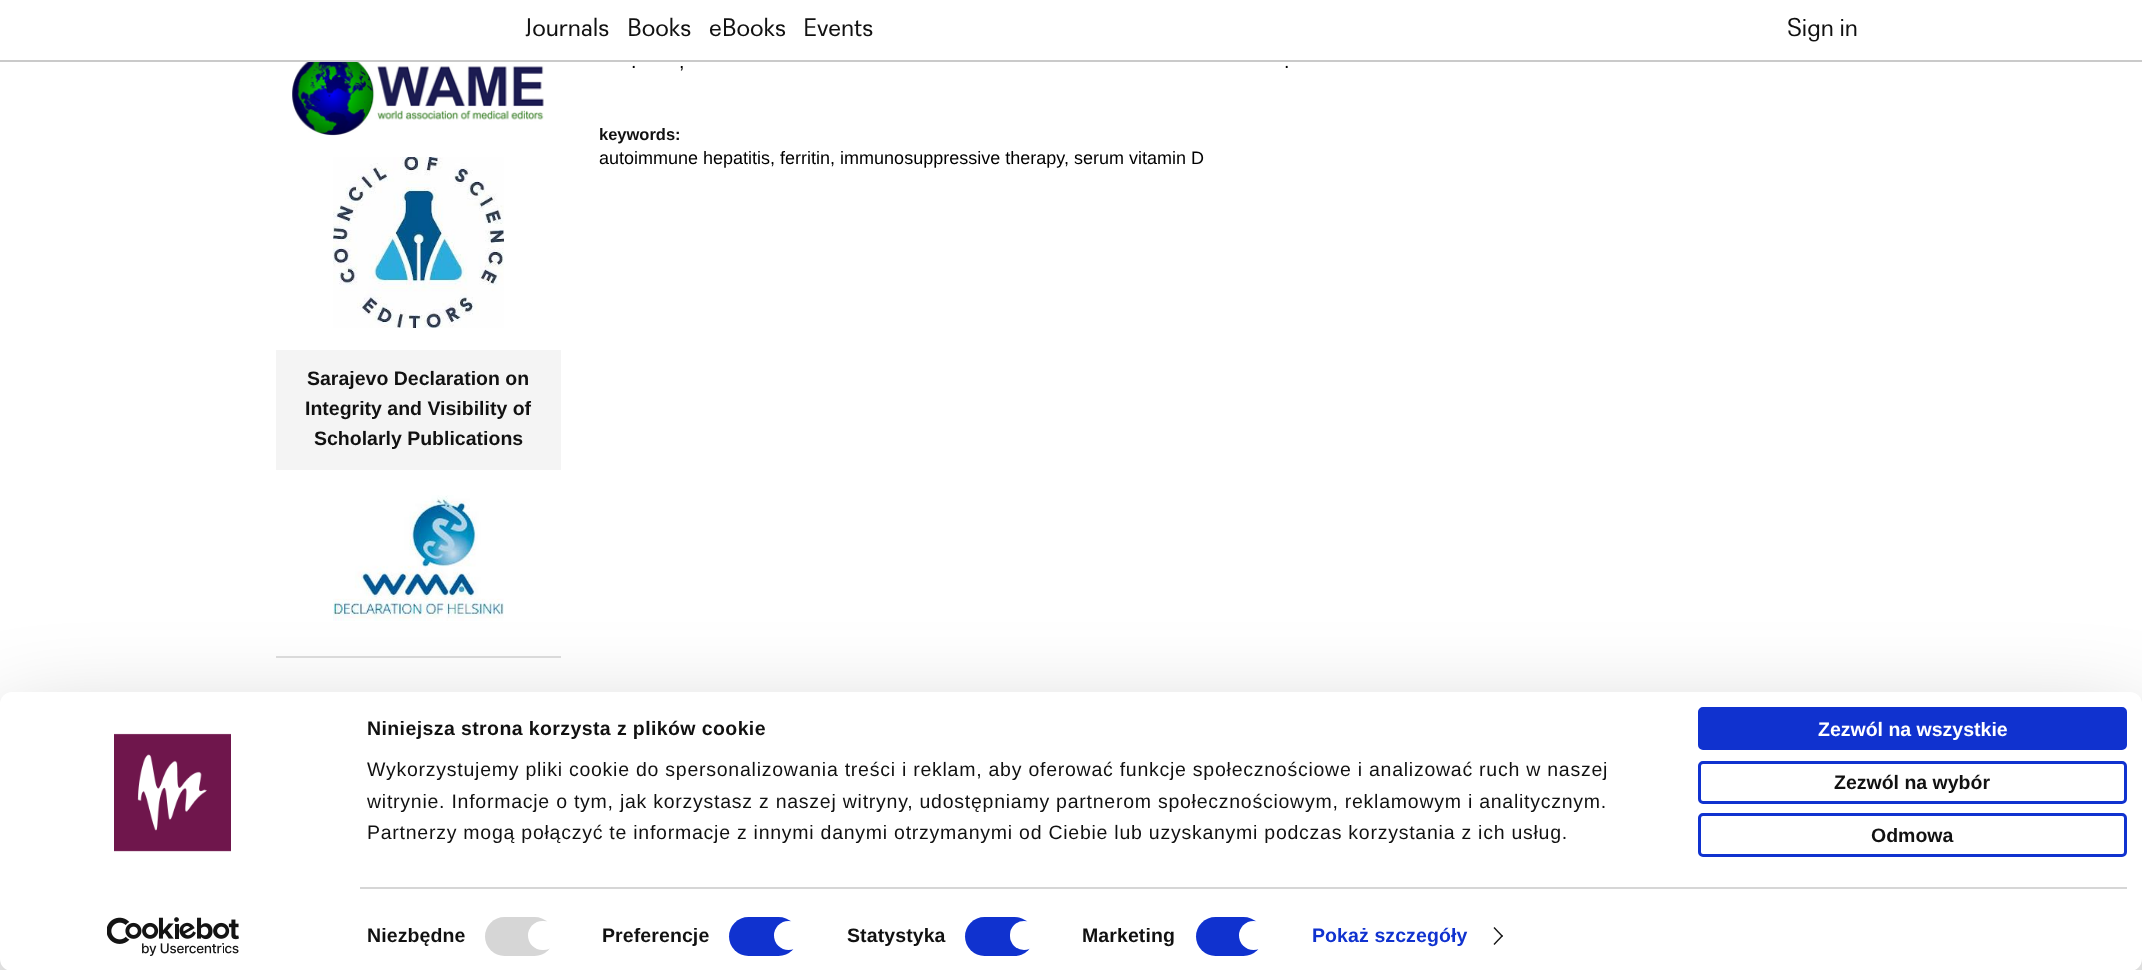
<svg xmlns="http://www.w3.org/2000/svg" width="2142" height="970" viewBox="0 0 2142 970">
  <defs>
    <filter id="blur1" x="-50%" y="-200%" width="200%" height="500%"><feGaussianBlur stdDeviation="52.5"/></filter>
  </defs>
  <rect width="100%" height="100%" fill="#ffffff"/>
  <rect x="0" y="60" width="2142" height="2" fill="#cacaca"/>
  <text x="525" y="36" font-family="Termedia" font-size="25.5" fill="#111111">Journals</text>
  <text x="627" y="36" font-family="Termedia" font-size="25.5" fill="#111111">Books</text>
  <text x="709" y="36" font-family="Termedia" font-size="25.5" fill="#111111">eBooks</text>
  <text x="803" y="36" font-family="Termedia" font-size="25.5" fill="#111111">Events</text>
  <text x="1787" y="36" font-family="Termedia" font-size="25.5" fill="#111111">Sign in</text>
  <text x="631" y="68" font-family="Liberation Sans" font-size="19.5" fill="#000000">.</text>
  <text x="679" y="68" font-family="Liberation Sans" font-size="19.5" fill="#000000">,</text>
  <text x="1284" y="68" font-family="Liberation Sans" font-size="19.5" fill="#000000">.</text>
  <text x="599" y="140" font-family="Liberation Sans" font-size="16.5" font-weight="bold" fill="#111111">keywords:</text>
  <text x="599" y="164" font-family="Liberation Sans" font-size="18" fill="#000000">autoimmune hepatitis, ferritin, immunosuppressive therapy, serum vitamin D</text>
  <rect x="276" y="656" width="285" height="2" fill="#dddddd"/>
  <image x="292" y="62" width="252" height="74" href="img1.png"/>
  <image x="333" y="157" width="171" height="171" href="img2.png"/>
  <rect x="276" y="350" width="285" height="120" fill="#f4f4f4"/>
  <text x="307" y="385" font-family="Liberation Sans" font-size="19.5" font-weight="bold" fill="#111111">Sarajevo Declaration on</text>
  <text x="305" y="415" font-family="Liberation Sans" font-size="19.5" font-weight="bold" fill="#111111">Integrity and Visibility of</text>
  <text x="314" y="445" font-family="Liberation Sans" font-size="19.5" font-weight="bold" fill="#111111">Scholarly Publications</text>
  <image x="333" y="495" width="171" height="126" href="img3.png"/>
  <rect x="0" y="737" width="2142" height="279" rx="12" fill="#000000" fill-opacity="0.3" filter="url(#blur1)"/>
  <rect x="0" y="692" width="2142" height="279" rx="12" fill="#ffffff"/>
  <image x="114" y="733" width="117" height="119" href="img4.png"/>
  <image x="107" y="917" width="132" height="39" href="img5.png"/>
  <text x="367" y="735" font-family="Liberation Sans" font-size="19.5" font-weight="bold" letter-spacing="0.4" fill="#111111">Niniejsza strona korzysta z plików cookie</text>
  <text x="367" y="776" font-family="Liberation Sans" font-size="19.5" letter-spacing="0.75" fill="#111111">Wykorzystujemy pliki cookie do spersonalizowania treści i reklam, aby oferować funkcje społecznościowe i analizować ruch w naszej</text>
  <text x="367" y="808" font-family="Liberation Sans" font-size="19.5" letter-spacing="0.75" fill="#111111">witrynie. Informacje o tym, jak korzystasz z naszej witryny, udostępniamy partnerom społecznościowym, reklamowym i analitycznym.</text>
  <text x="367" y="839" font-family="Liberation Sans" font-size="19.5" letter-spacing="0.75" fill="#111111">Partnerzy mogą połączyć te informacje z innymi danymi otrzymanymi od Ciebie lub uzyskanymi podczas korzystania z ich usług.</text>
  <rect x="360" y="887" width="1767" height="2" fill="#d6d6d6"/>
  <text x="367" y="942" font-family="Liberation Sans" font-size="19.5" font-weight="bold" letter-spacing="0.1" fill="#111111">Niezbędne</text>
  <rect x="485" y="917" width="69" height="39" rx="19.5" fill="#d6d6d6"/>
  <rect x="528" y="921" width="30" height="29" rx="14.5" fill="#ffffff"/>
  <text x="602" y="942" font-family="Liberation Sans" font-size="19.5" font-weight="bold" letter-spacing="0.1" fill="#111111">Preferencje</text>
  <rect x="729" y="917" width="69" height="39" rx="19.5" fill="#1032cf"/>
  <circle cx="788.5" cy="935.5" r="14.5" fill="#ffffff"/>
  <text x="847" y="942" font-family="Liberation Sans" font-size="19.5" font-weight="bold" letter-spacing="0.1" fill="#111111">Statystyka</text>
  <rect x="965" y="917" width="69" height="39" rx="19.5" fill="#1032cf"/>
  <rect x="1010" y="921" width="28" height="29" rx="14" fill="#ffffff"/>
  <text x="1082" y="942" font-family="Liberation Sans" font-size="19.5" font-weight="bold" letter-spacing="0.1" fill="#111111">Marketing</text>
  <rect x="1196" y="917" width="67" height="39" rx="19.5" fill="#1032cf"/>
  <circle cx="1253.5" cy="935.5" r="14.5" fill="#ffffff"/>
  <text x="1312" y="942" font-family="Liberation Sans" font-size="19.5" font-weight="bold" letter-spacing="0.1" fill="#1032cf">Pokaż szczegóły</text>
  <path d="M1494.5 927L1503 936L1502 937L1493.5 928Z" fill="#141414"/>
  <path d="M1502 935L1503 936L1494.5 945L1493.5 944Z" fill="#141414"/>
  <rect x="1699.5" y="708.5" width="426" height="40" rx="3.5" fill="#1032cf" stroke="#1032cf" stroke-width="3"/>
  <text x="1818" y="736" font-family="Liberation Sans" font-size="19.5" font-weight="bold" fill="#ffffff">Zezwól na wszystkie</text>
  <rect x="1699.5" y="762.5" width="426" height="40" rx="3.5" fill="none" stroke="#1032cf" stroke-width="3"/>
  <text x="1834" y="789" font-family="Liberation Sans" font-size="19.5" font-weight="bold" fill="#111111">Zezwól na wybór</text>
  <rect x="1699.5" y="814.5" width="426" height="41" rx="3.5" fill="none" stroke="#1032cf" stroke-width="3"/>
  <text x="1871" y="842" font-family="Liberation Sans" font-size="19.5" font-weight="bold" fill="#111111">Odmowa</text>
</svg>
